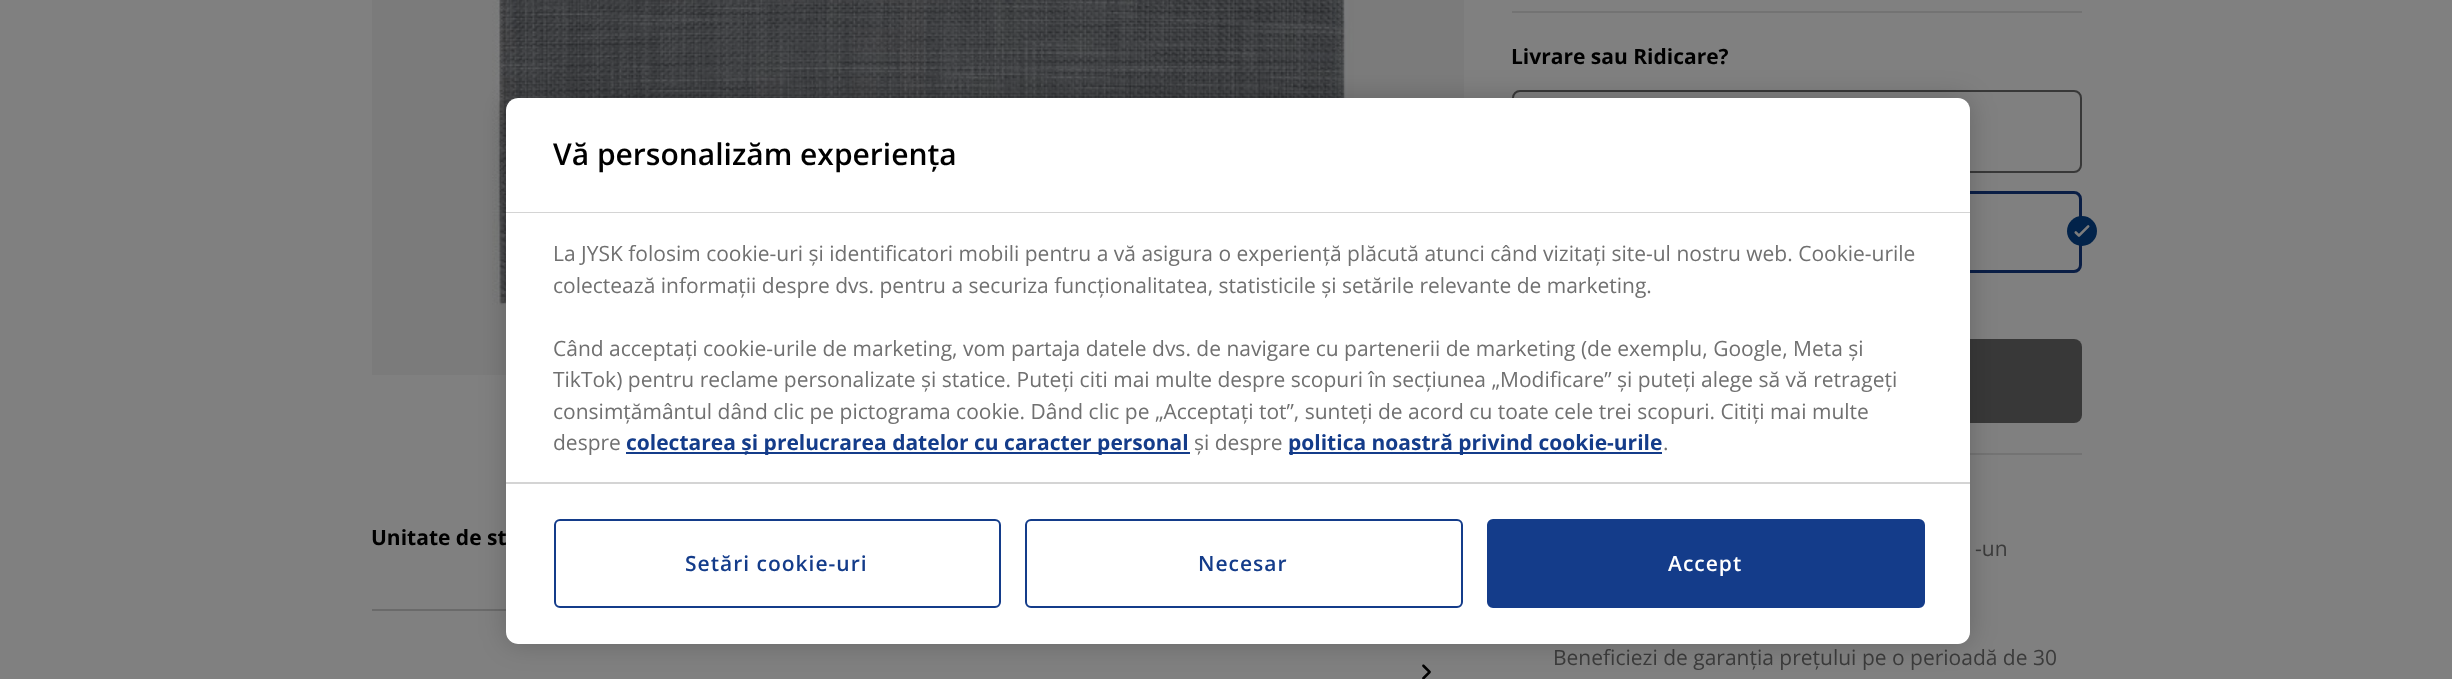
<svg xmlns="http://www.w3.org/2000/svg" width="2452" height="679" viewBox="0 0 2452 679">
  <defs>
    <filter id="blur1" x="-50%" y="-200%" width="200%" height="500%"><feGaussianBlur stdDeviation="13.5"/></filter>
  </defs>
  <rect width="100%" height="100%" fill="#808080"/>
  <rect x="372" y="0" width="1092" height="375" fill="#7b7b7b"/>
  <image x="492" y="0" width="862" height="305" href="img1.png"/>
  <rect x="1512" y="11" width="570" height="2" fill="#737373"/>
  <text x="1511" y="64" font-family="Open Sans" font-size="21" font-weight="bold" fill="#000000">Livrare sau Ridicare?</text>
  <rect x="1513" y="91" width="568" height="81" rx="7" fill="none" stroke="#383838" stroke-width="2"/>
  <rect x="1513.5" y="192.5" width="567" height="79" rx="6.5" fill="none" stroke="#0a1e45" stroke-width="3"/>
  <circle cx="2082" cy="231" r="15" fill="#02234a"/>
  <image x="2074" y="225" width="16" height="12" href="img2.png"/>
  <rect x="1695" y="339" width="387" height="84" rx="8" fill="#383838"/>
  <rect x="1970" y="453" width="112" height="2" fill="#737373"/>
  <text x="1975" y="556" font-family="Open Sans" font-size="21" fill="#3b3b3b">-un</text>
  <text x="1553" y="665" font-family="Open Sans" font-size="21" fill="#3b3b3b">Beneficiezi de garanția prețului pe o perioadă de 30</text>
  <text x="371" y="545" font-family="Open Sans" font-size="21" font-weight="bold" fill="#000000">Unitate de st</text>
  <rect x="372" y="609" width="134" height="2" fill="#6a6a6a"/>
  <image x="1422" y="664" width="9" height="15" href="img3.png"/>
  <rect x="506" y="98" width="1464" height="546" rx="12" fill="#000000" fill-opacity="0.2" filter="url(#blur1)"/>
  <path d="M518 98H1958C1964.5 98 1970 103.5 1970 110V482H506V110C506 103.5 511.5 98 518 98Z" fill="#ffffff"/>
  <rect x="506" y="212" width="1464" height="1" fill="#d4d4d4"/>
  <text x="553" y="165" font-family="Open Sans" font-size="30" font-weight="600" fill="#000000">Vă personalizăm experiența</text>
  <text x="553" y="261" font-family="Open Sans" font-size="21" fill="#707070">La JYSK folosim cookie-uri și identificatori mobili pentru a vă asigura o experiență plăcută atunci când vizitați site-ul nostru web. Cookie-urile</text>
  <text x="553" y="293" font-family="Open Sans" font-size="21" fill="#707070">colectează informații despre dvs. pentru a securiza funcționalitatea, statisticile și setările relevante de marketing.</text>
  <text x="553" y="356" font-family="Open Sans" font-size="21" fill="#707070">Când acceptați cookie-urile de marketing, vom partaja datele dvs. de navigare cu partenerii de marketing (de exemplu, Google, Meta și</text>
  <text x="553" y="387" font-family="Open Sans" font-size="21" fill="#707070">TikTok) pentru reclame personalizate și statice. Puteți citi mai multe despre scopuri în secțiunea „Modificare” și puteți alege să vă retrageți</text>
  <text x="553" y="419" font-family="Open Sans" font-size="21" fill="#707070">consimțământul dând clic pe pictograma cookie. Dând clic pe „Acceptați tot”, sunteți de acord cu toate cele trei scopuri. Citiți mai multe</text>
  <text x="553" y="450" font-family="Open Sans" font-size="21" fill="#707070">despre</text>
  <rect x="626" y="452" width="564" height="2" fill="#143c8a"/>
  <text x="626" y="450" font-family="Open Sans" font-size="21" font-weight="bold" fill="#143c8a">colectarea și prelucrarea datelor cu caracter personal</text>
  <text x="1194" y="450" font-family="Open Sans" font-size="21" fill="#707070">și despre</text>
  <rect x="1289" y="452" width="373" height="2" fill="#143c8a"/>
  <text x="1288" y="450" font-family="Open Sans" font-size="21" font-weight="bold" fill="#143c8a">politica noastră privind cookie-urile</text>
  <text x="1663" y="450" font-family="Open Sans" font-size="21" fill="#707070">.</text>
  <path d="M506 482H1970V632C1970 638.5 1964.5 644 1958 644H518C511.5 644 506 638.5 506 632Z" fill="#ffffff"/>
  <rect x="506" y="482" width="1464" height="2" fill="#d4d4d4"/>
  <rect x="555" y="520" width="445" height="87" rx="5" fill="none" stroke="#143c8a" stroke-width="2"/>
  <text x="685" y="571" font-family="Open Sans" font-size="21" font-weight="600" letter-spacing="1" fill="#143c8a">Setări cookie-uri</text>
  <rect x="1026" y="520" width="436" height="87" rx="5" fill="none" stroke="#143c8a" stroke-width="2"/>
  <text x="1198" y="571" font-family="Open Sans" font-size="21" font-weight="600" letter-spacing="1" fill="#143c8a">Necesar</text>
  <rect x="1488" y="520" width="436" height="87" rx="5" fill="#143c8a" stroke="#143c8a" stroke-width="2"/>
  <text x="1668" y="571" font-family="Open Sans" font-size="21" font-weight="600" letter-spacing="1" fill="#ffffff">Accept</text>
</svg>
